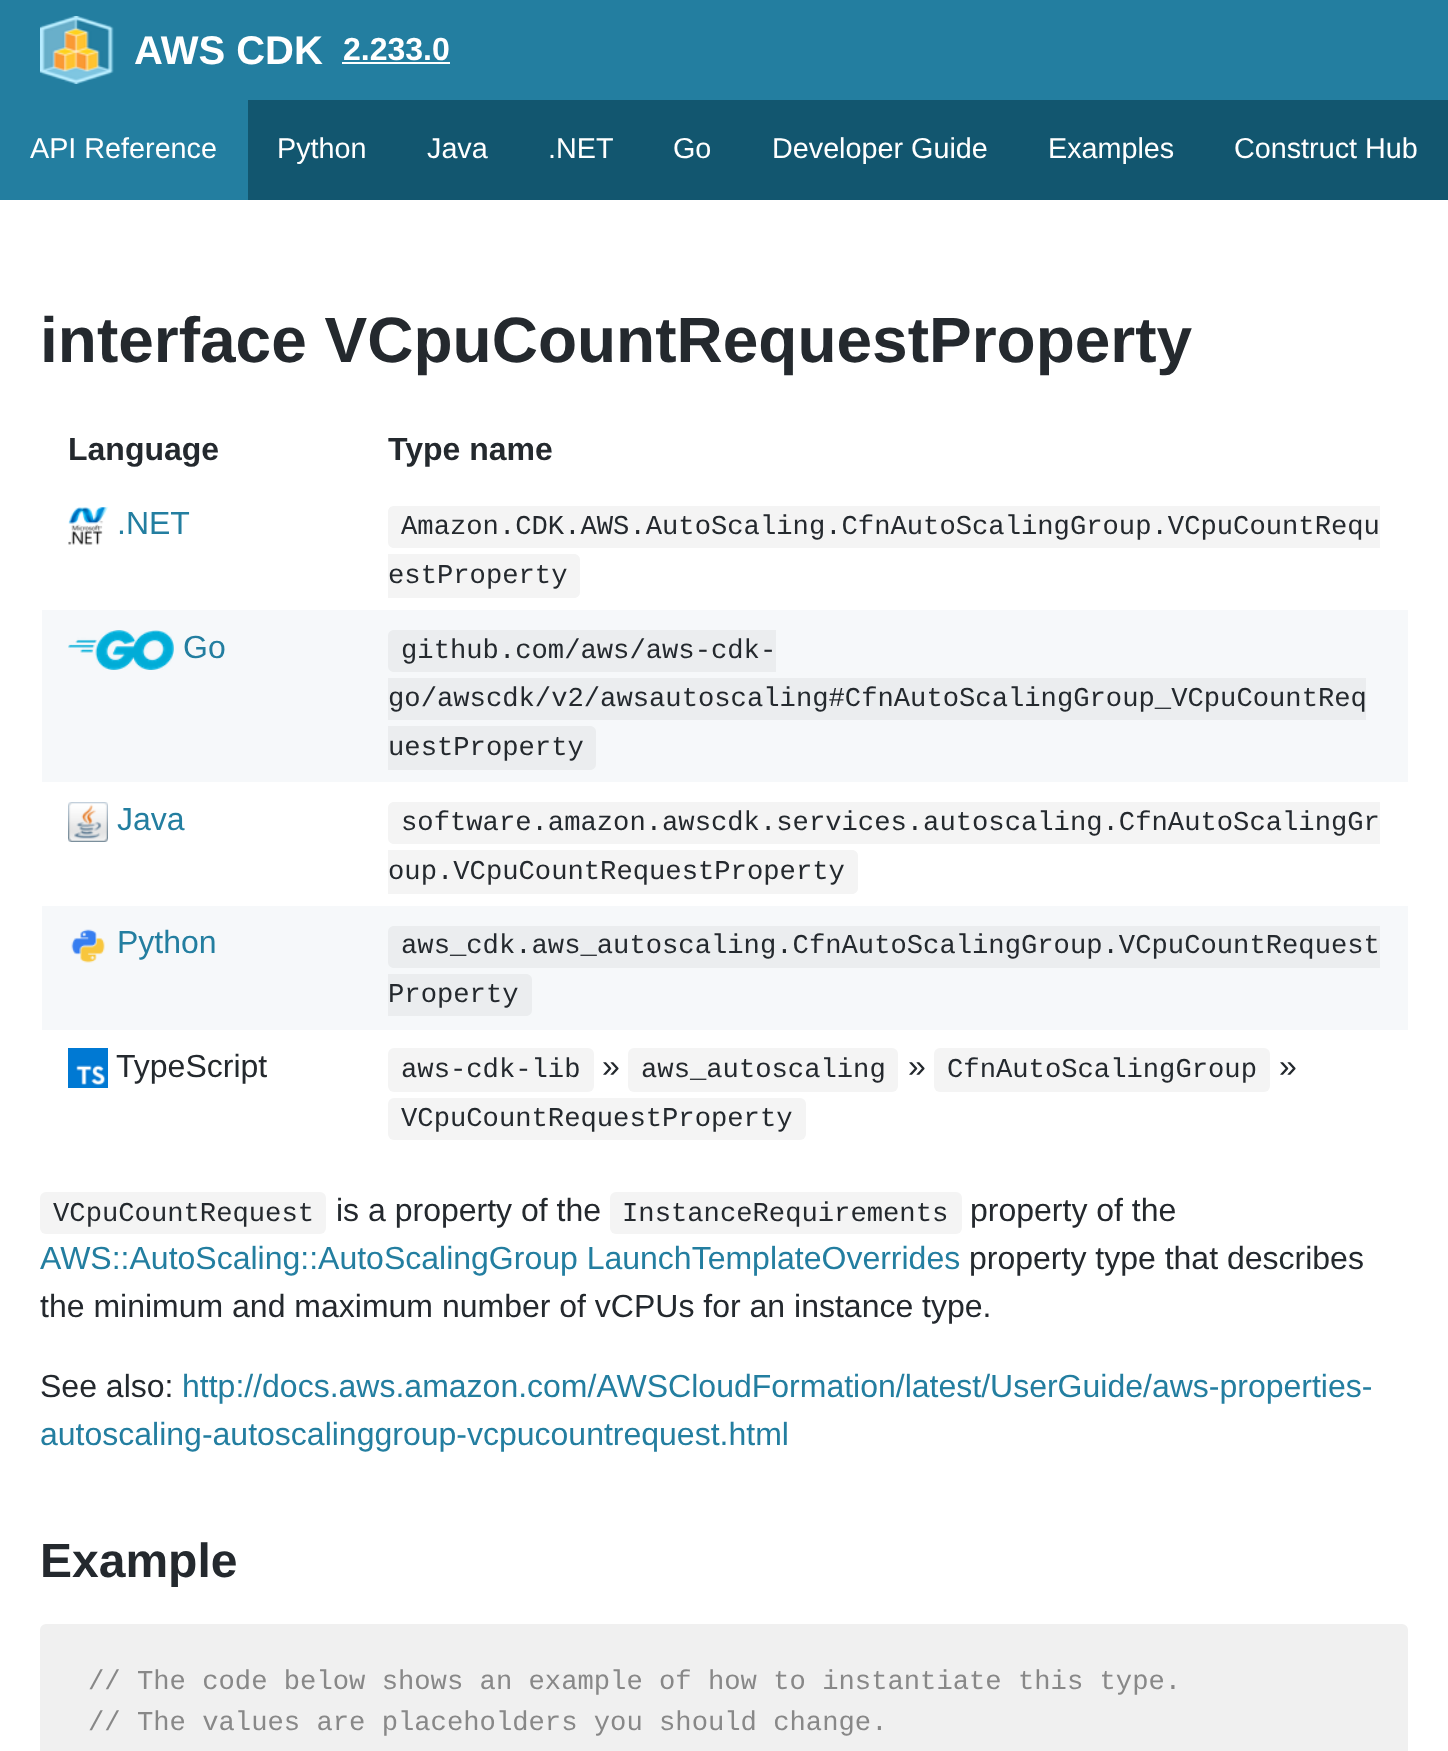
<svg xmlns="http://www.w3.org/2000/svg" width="1448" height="1751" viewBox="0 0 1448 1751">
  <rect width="100%" height="100%" fill="#ffffff"/>
  <rect x="0" y="0" width="1448" height="100" fill="#237ea0"/>
  <image x="40" y="16" width="74" height="68" href="img1.png"/>
  <text x="134" y="64" font-family="Liberation Sans" font-size="40" font-weight="bold" fill="#ffffff">AWS CDK</text>
  <text x="343" y="60" font-family="Liberation Sans" font-size="32" font-weight="bold" fill="#ffffff">2.233.0</text>
  <rect x="342" y="62" width="108" height="2" fill="#ffffff"/>
  <rect x="248" y="100" width="1200" height="100" fill="#12566f"/>
  <rect x="0" y="100" width="248" height="100" fill="#237ea0"/>
  <text x="30" y="158" font-family="Liberation Sans" font-size="28.75" fill="#ffffff">API Reference</text>
  <text x="277" y="158" font-family="Liberation Sans" font-size="28.75" fill="#ffffff">Python</text>
  <text x="427" y="158" font-family="Liberation Sans" font-size="28.75" fill="#ffffff">Java</text>
  <text x="548" y="158" font-family="Liberation Sans" font-size="28.75" fill="#ffffff">.NET</text>
  <text x="673" y="158" font-family="Liberation Sans" font-size="28.75" fill="#ffffff">Go</text>
  <text x="772" y="158" font-family="Liberation Sans" font-size="28.75" fill="#ffffff">Developer Guide</text>
  <text x="1048" y="158" font-family="Liberation Sans" font-size="28.75" fill="#ffffff">Examples</text>
  <text x="1234" y="158" font-family="Liberation Sans" font-size="28.75" fill="#ffffff">Construct Hub</text>
  <text x="40" y="362" font-family="Liberation Sans" font-size="64" font-weight="bold" fill="#24292e">interface VCpuCountRequestProperty</text>
  <text x="68" y="460" font-family="Liberation Sans" font-size="32" font-weight="bold" fill="#24292e">Language</text>
  <text x="388" y="460" font-family="Liberation Sans" font-size="32" font-weight="bold" fill="#24292e">Type name</text>
  <image x="68" y="507" width="40" height="38" href="img2.png"/>
  <text x="117" y="534" font-family="Liberation Sans" font-size="32" fill="#237ea0">.NET</text>
  <path d="M394 506H1380V548H394C390.5 548 388 545.5 388 542V512C388 508.5 390.5 506 394 506Z" fill="#f4f4f4"/>
  <text x="401" y="534" font-family="Liberation Mono" font-size="27.2" fill="#24292e">Amazon.CDK.AWS.AutoScaling.CfnAutoScalingGroup.VCpuCountRequ</text>
  <path d="M388 554H574C577.5 554 580 556.5 580 560V592C580 595.5 577.5 598 574 598H388Z" fill="#f4f4f4"/>
  <text x="388" y="583" font-family="Liberation Mono" font-size="27.2" fill="#24292e">estProperty</text>
  <rect x="42" y="610" width="1366" height="172" fill="#f6f8fa"/>
  <image x="68" y="630" width="106" height="40" href="img3.png"/>
  <text x="183" y="658" font-family="Liberation Sans" font-size="32" fill="#237ea0">Go</text>
  <path d="M394 630H776V672H394C390.5 672 388 669.5 388 666V636C388 632.5 390.5 630 394 630Z" fill="#ebedef"/>
  <text x="401" y="658" font-family="Liberation Mono" font-size="27.2" fill="#24292e">github.com/aws/aws-cdk-</text>
  <rect x="388" y="678" width="978" height="42" fill="#ebedef"/>
  <text x="388" y="706" font-family="Liberation Mono" font-size="27.2" fill="#24292e">go/awscdk/v2/awsautoscaling#CfnAutoScalingGroup_VCpuCountReq</text>
  <path d="M388 726H590C593.5 726 596 728.5 596 732V764C596 767.5 593.5 770 590 770H388Z" fill="#ebedef"/>
  <text x="388" y="755" font-family="Liberation Mono" font-size="27.2" fill="#24292e">uestProperty</text>
  <image x="68" y="802" width="40" height="40" href="img4.png"/>
  <text x="117" y="830" font-family="Liberation Sans" font-size="32" fill="#237ea0">Java</text>
  <path d="M394 802H1380V844H394C390.5 844 388 841.5 388 838V808C388 804.5 390.5 802 394 802Z" fill="#f4f4f4"/>
  <text x="401" y="830" font-family="Liberation Mono" font-size="27.2" fill="#24292e">software.amazon.awscdk.services.autoscaling.CfnAutoScalingGr</text>
  <path d="M388 850H852C855.5 850 858 852.5 858 856V888C858 891.5 855.5 894 852 894H388Z" fill="#f4f4f4"/>
  <text x="388" y="879" font-family="Liberation Mono" font-size="27.2" fill="#24292e">oup.VCpuCountRequestProperty</text>
  <rect x="42" y="906" width="1366" height="124" fill="#f6f8fa"/>
  <image x="71" y="929" width="34" height="34" href="img5.png"/>
  <text x="117" y="953" font-family="Liberation Sans" font-size="32" fill="#237ea0">Python</text>
  <path d="M394 926H1380V968H394C390.5 968 388 965.5 388 962V932C388 928.5 390.5 926 394 926Z" fill="#ebedef"/>
  <text x="401" y="953" font-family="Liberation Mono" font-size="27.2" fill="#24292e">aws_cdk.aws_autoscaling.CfnAutoScalingGroup.VCpuCountRequest</text>
  <path d="M388 974H526C529.5 974 532 976.5 532 980V1010C532 1013.5 529.5 1016 526 1016H388Z" fill="#ebedef"/>
  <text x="388" y="1002" font-family="Liberation Mono" font-size="27.2" fill="#24292e">Property</text>
  <image x="68" y="1048" width="40" height="40" href="img6.png"/>
  <text x="116" y="1077" font-family="Liberation Sans" font-size="32" fill="#24292e">TypeScript</text>
  <rect x="388" y="1048" width="206" height="44" rx="6" fill="#f4f4f4"/>
  <text x="401" y="1077" font-family="Liberation Mono" font-size="27.2" fill="#24292e">aws-cdk-lib</text>
  <text x="602" y="1077" font-family="Liberation Sans" font-size="32" fill="#24292e">»</text>
  <rect x="628" y="1048" width="270" height="44" rx="6" fill="#f4f4f4"/>
  <text x="641" y="1077" font-family="Liberation Mono" font-size="27.2" fill="#24292e">aws_autoscaling</text>
  <text x="908" y="1077" font-family="Liberation Sans" font-size="32" fill="#24292e">»</text>
  <rect x="934" y="1048" width="336" height="44" rx="6" fill="#f4f4f4"/>
  <text x="947" y="1077" font-family="Liberation Mono" font-size="27.2" fill="#24292e">CfnAutoScalingGroup</text>
  <text x="1279" y="1077" font-family="Liberation Sans" font-size="32" fill="#24292e">»</text>
  <rect x="388" y="1098" width="418" height="42" rx="6" fill="#f4f4f4"/>
  <text x="401" y="1126" font-family="Liberation Mono" font-size="27.2" fill="#24292e">VCpuCountRequestProperty</text>
  <rect x="40" y="1192" width="286" height="42" rx="6" fill="#f4f4f4"/>
  <text x="53" y="1221" font-family="Liberation Mono" font-size="27.2" fill="#24292e">VCpuCountRequest</text>
  <text x="336" y="1221" font-family="Liberation Sans" font-size="32" fill="#24292e">is a property of the</text>
  <rect x="610" y="1192" width="352" height="42" rx="6" fill="#f4f4f4"/>
  <text x="622" y="1221" font-family="Liberation Mono" font-size="27.2" fill="#24292e">InstanceRequirements</text>
  <text x="970" y="1221" font-family="Liberation Sans" font-size="32" fill="#24292e">property of the</text>
  <text x="40" y="1269" font-family="Liberation Sans" font-size="32" fill="#237ea0">AWS::AutoScaling::AutoScalingGroup LaunchTemplateOverrides</text>
  <text x="969" y="1269" font-family="Liberation Sans" font-size="32" fill="#24292e">property type that describes</text>
  <text x="40" y="1317" font-family="Liberation Sans" font-size="32" fill="#24292e">the minimum and maximum number of vCPUs for an instance type.</text>
  <text x="40" y="1397" font-family="Liberation Sans" font-size="32" fill="#24292e">See also:</text>
  <text x="182" y="1397" font-family="Liberation Sans" font-size="32" fill="#237ea0">http://docs.aws.amazon.com/AWSCloudFormation/latest/UserGuide/aws-properties-</text>
  <text x="40" y="1445" font-family="Liberation Sans" font-size="32" fill="#237ea0">autoscaling-autoscalinggroup-vcpucountrequest.html</text>
  <text x="40" y="1577" font-family="Liberation Sans" font-size="48" font-weight="bold" fill="#24292e">Example</text>
  <rect x="40" y="1624" width="1368" height="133" rx="6" fill="#f0f0f0"/>
  <text x="88" y="1689" font-family="Liberation Mono" font-size="27.2" fill="#888888">// The code below shows an example of how to instantiate this type.</text>
  <text x="88" y="1730" font-family="Liberation Mono" font-size="27.2" fill="#888888">// The values are placeholders you should change.</text>
</svg>
